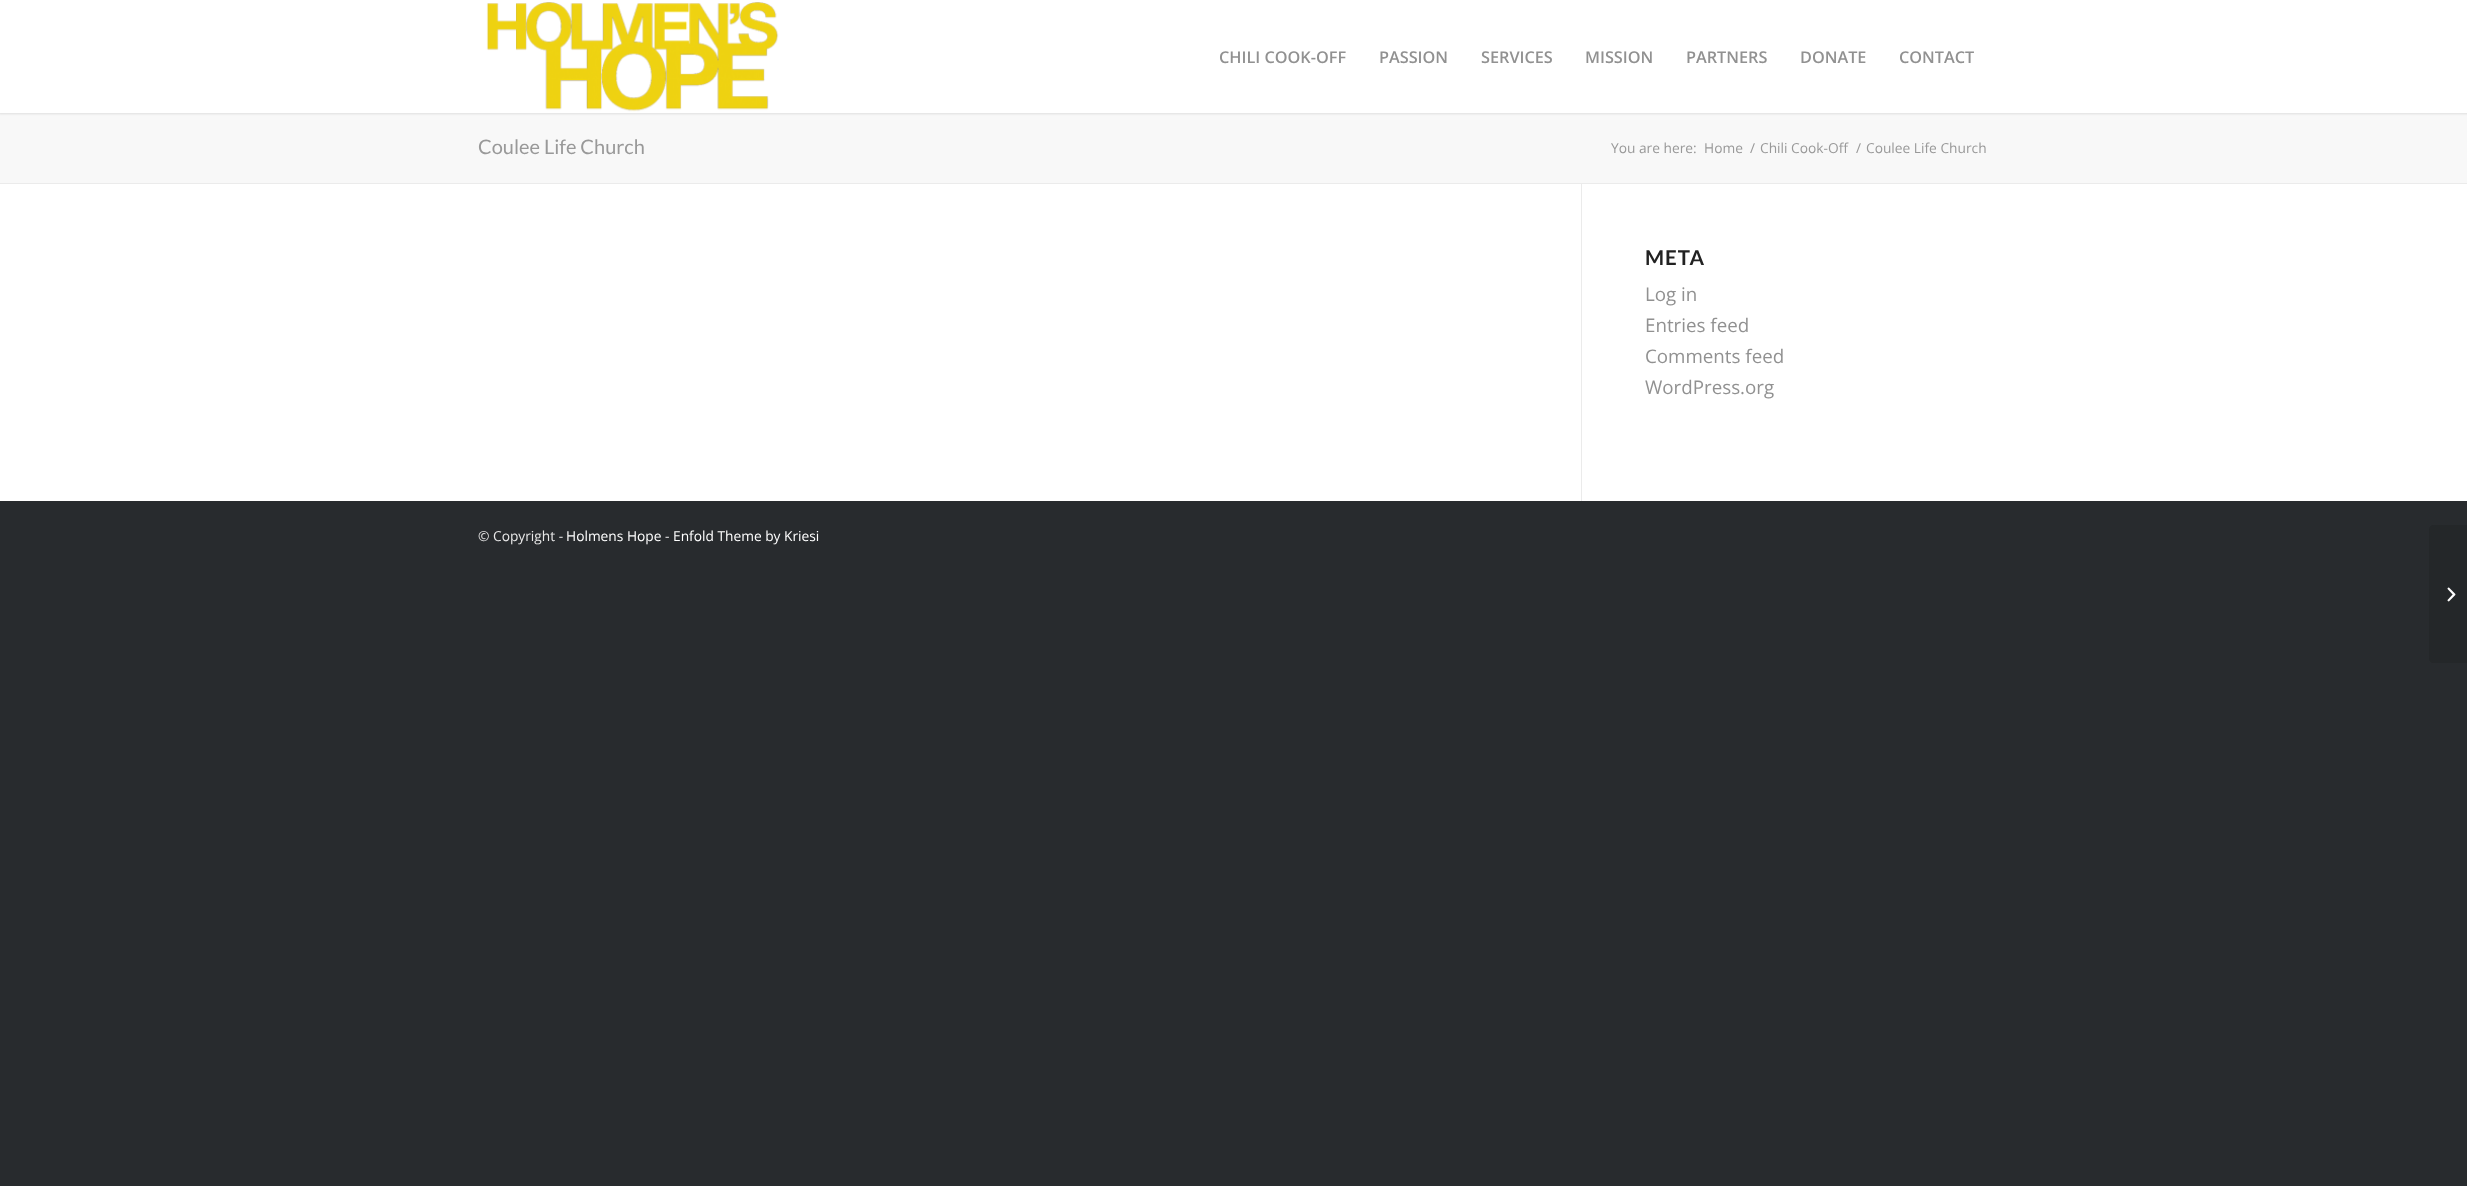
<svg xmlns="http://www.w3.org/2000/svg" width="2467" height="1186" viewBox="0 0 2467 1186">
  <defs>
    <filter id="blur1" x="-50%" y="-200%" width="200%" height="500%"><feGaussianBlur stdDeviation="1"/></filter>
  </defs>
  <rect width="100%" height="100%" fill="#282b2e"/>
  <rect x="0" y="184" width="2467" height="317" fill="#ffffff"/>
  <rect x="0" y="113" width="2467" height="70" fill="#f8f8f8"/>
  <rect x="-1" y="-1" width="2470" height="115" fill="#000000" fill-opacity="0.1" filter="url(#blur1)"/>
  <rect x="0" y="0" width="2467" height="113" fill="#ffffff"/>
  <image x="486" y="2" width="293" height="110" href="img1.png"/>
  <text x="1219" y="63" font-family="Open Sans" font-size="16.25" font-weight="600" fill="#919191">CHILI COOK-OFF</text>
  <text x="1379" y="63" font-family="Open Sans" font-size="16.25" font-weight="600" fill="#919191">PASSION</text>
  <text x="1481" y="63" font-family="Open Sans" font-size="16.25" font-weight="600" fill="#919191">SERVICES</text>
  <text x="1585" y="63" font-family="Open Sans" font-size="16.25" font-weight="600" fill="#919191">MISSION</text>
  <text x="1686" y="63" font-family="Open Sans" font-size="16.25" font-weight="600" fill="#919191">PARTNERS</text>
  <text x="1800" y="63" font-family="Open Sans" font-size="16.25" font-weight="600" fill="#919191">DONATE</text>
  <text x="1899" y="63" font-family="Open Sans" font-size="16.25" font-weight="600" fill="#919191">CONTACT</text>
  <text x="478" y="154" font-family="Lato" font-size="20" fill="#999999">Coulee Life Church</text>
  <text x="1611" y="153" font-family="Open Sans" font-size="13.75" fill="#999999">You are here:</text>
  <text x="1704" y="153" font-family="Open Sans" font-size="13.75" fill="#999999">Home</text>
  <text x="1750" y="153" font-family="Open Sans" font-size="13.75" fill="#999999">/</text>
  <text x="1760" y="153" font-family="Open Sans" font-size="13.75" fill="#999999">Chili Cook-Off</text>
  <text x="1856" y="153" font-family="Open Sans" font-size="13.75" fill="#999999">/</text>
  <text x="1866" y="153" font-family="Open Sans" font-size="13.75" fill="#999999">Coulee Life Church</text>
  <rect x="0" y="183" width="2467" height="1" fill="#ebebeb"/>
  <rect x="1581" y="184" width="1" height="319" fill="#ebebeb"/>
  <text x="1645" y="265" font-family="Lato" font-size="20.5" font-weight="bold" letter-spacing="1" fill="#222222">META</text>
  <text x="1645" y="301" font-family="Open Sans" font-size="18.75" fill="#919191">Log in</text>
  <text x="1645" y="332" font-family="Open Sans" font-size="18.75" fill="#919191">Entries feed</text>
  <text x="1645" y="363" font-family="Open Sans" font-size="18.75" fill="#919191">Comments feed</text>
  <text x="1645" y="394" font-family="Open Sans" font-size="18.75" fill="#919191">WordPress.org</text>
  <rect x="1581" y="501" width="1" height="2" fill="#282b2e"/>
  <text x="478" y="541" font-family="Open Sans" font-size="13.75" fill="#e8e8e8">© Copyright -</text>
  <text x="566" y="541" font-family="Open Sans" font-size="13.75" fill="#ffffff">Holmens Hope</text>
  <text x="665" y="541" font-family="Open Sans" font-size="13.75" fill="#e8e8e8">-</text>
  <text x="673" y="541" font-family="Open Sans" font-size="13.75" fill="#ffffff">Enfold Theme by Kriesi</text>
  <path d="M2434 525H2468V663H2434C2431 663 2429 661 2429 658V530C2429 527 2431 525 2434 525Z" fill="#242729"/>
  <image x="2447" y="587" width="9" height="15" href="img2.png"/>
</svg>
